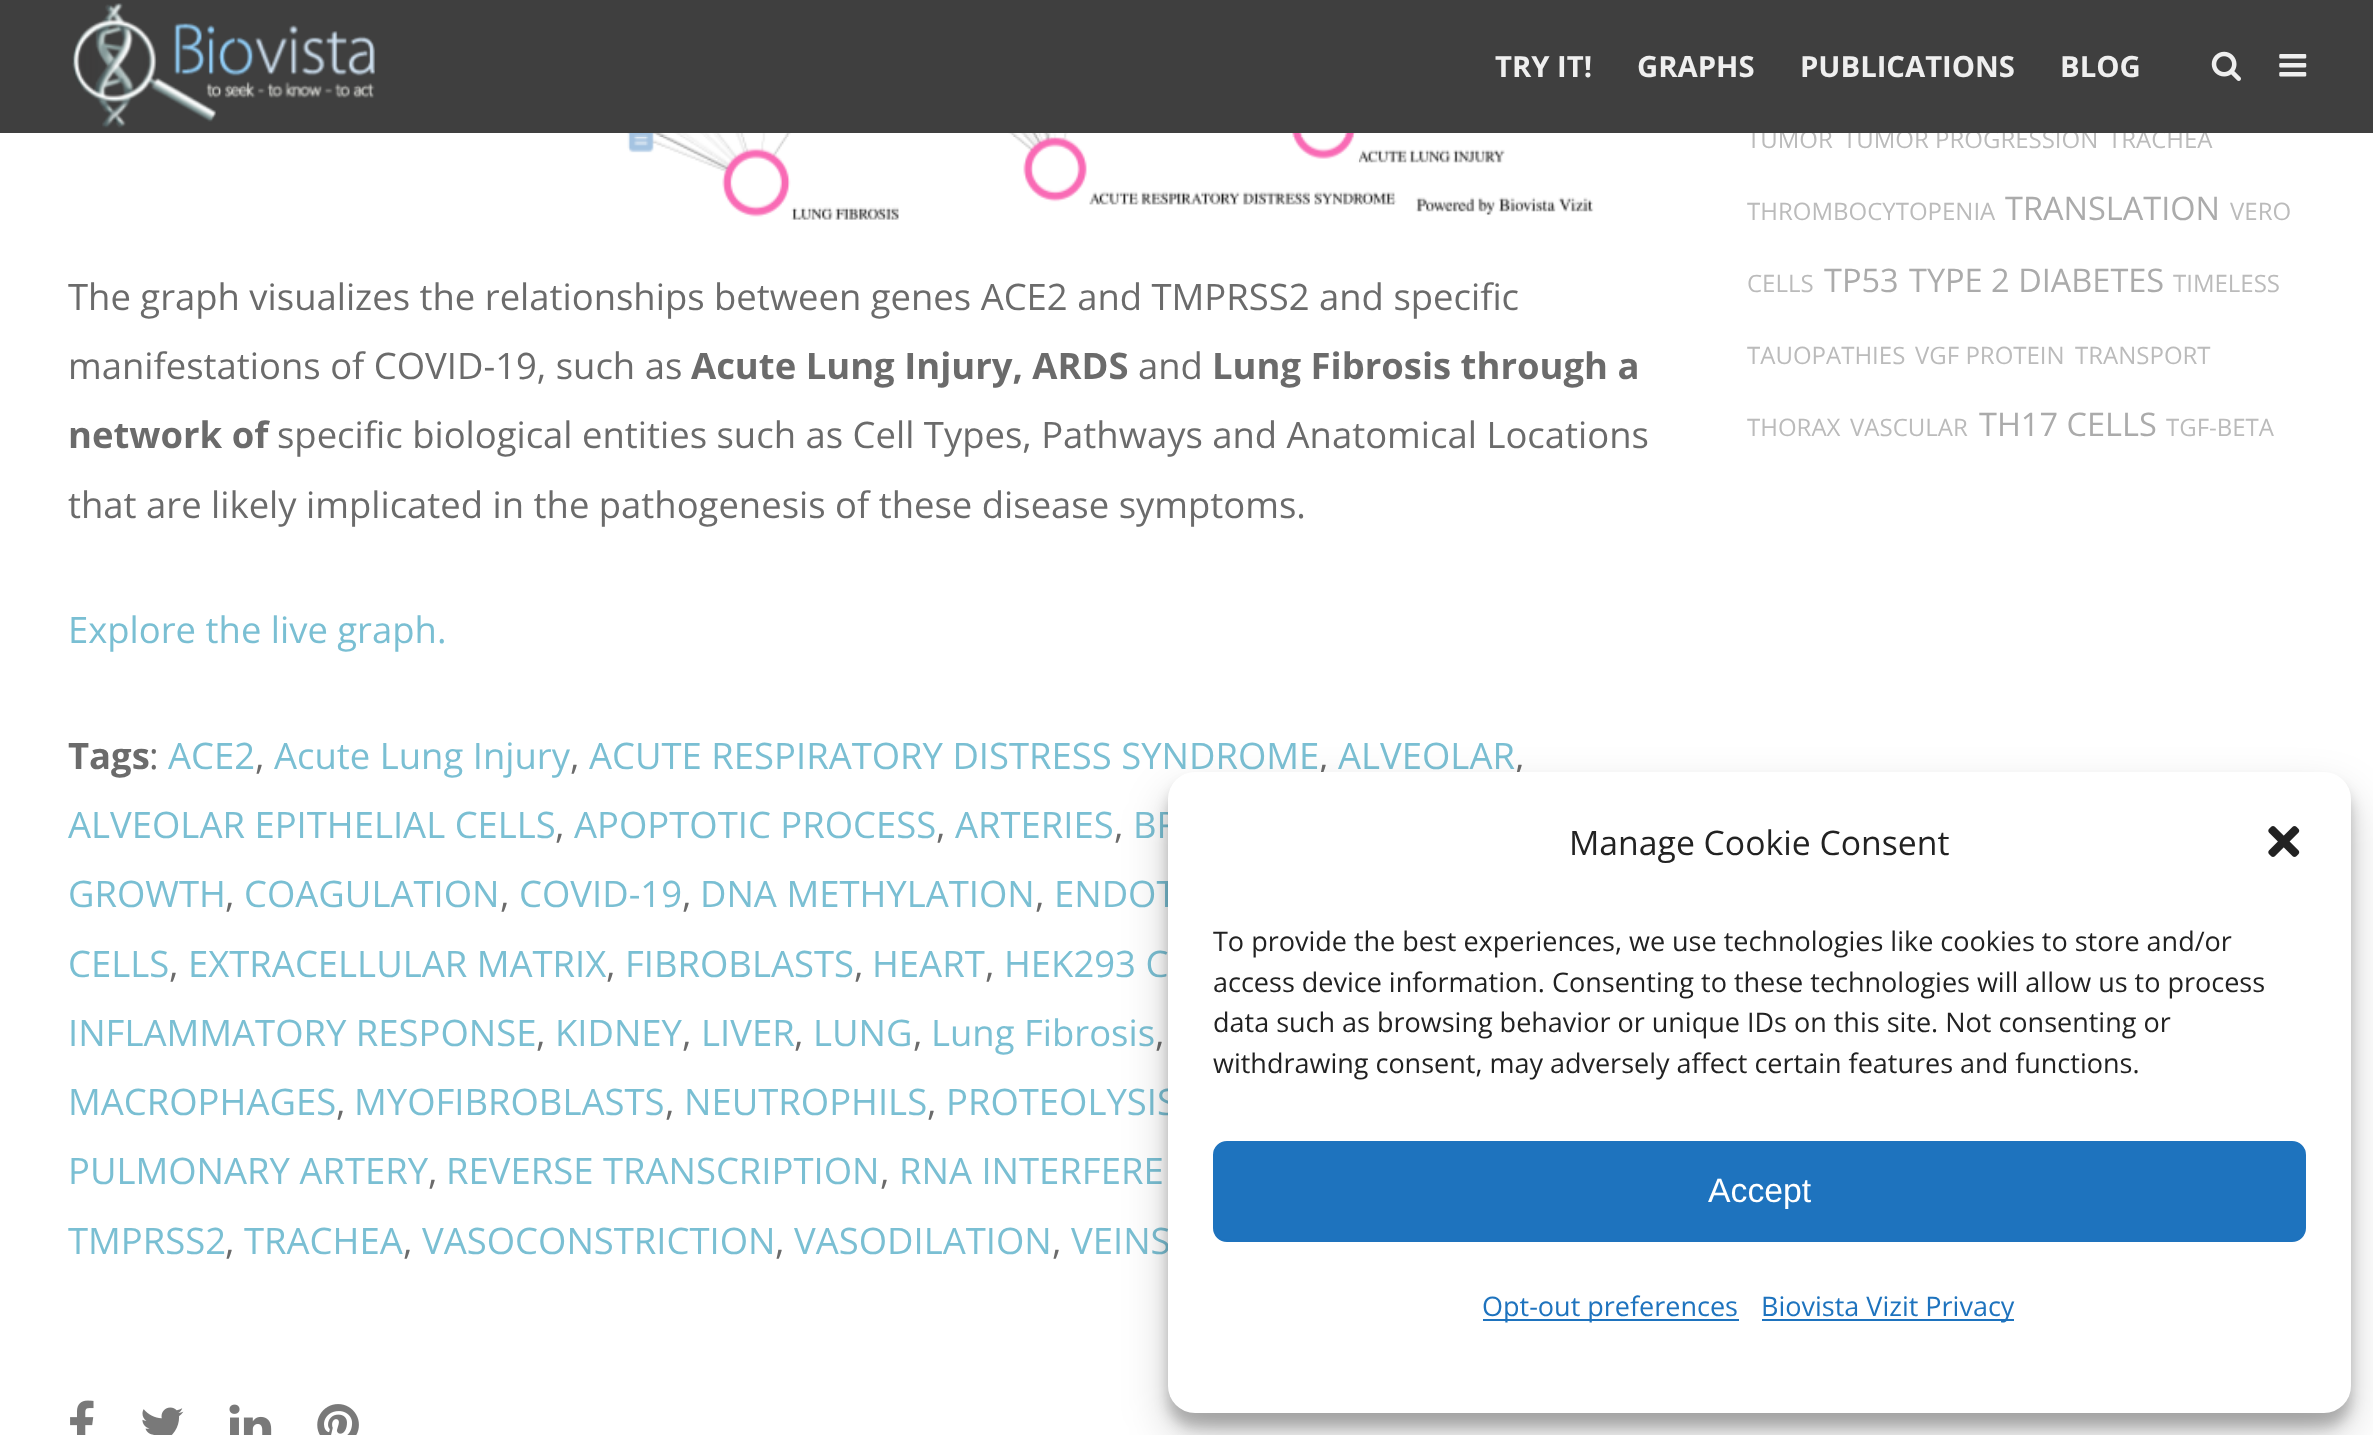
<svg xmlns="http://www.w3.org/2000/svg" width="2373" height="1435" viewBox="0 0 2373 1435">
  <defs>
    <filter id="blur1" x="-50%" y="-200%" width="200%" height="500%"><feGaussianBlur stdDeviation="7"/></filter>
    <filter id="blur2" x="-50%" y="-200%" width="200%" height="500%"><feGaussianBlur stdDeviation="22.5"/></filter>
  </defs>
  <rect width="100%" height="100%" fill="#ffffff"/>
  <text x="1747" y="148" font-family="Open Sans" font-size="24" fill="#bbbbbb">TUMOR</text>
  <text x="1843" y="148" font-family="Open Sans" font-size="24" fill="#bbbbbb">TUMOR PROGRESSION</text>
  <text x="2108" y="148" font-family="Open Sans" font-size="24" fill="#bbbbbb">TRACHEA</text>
  <rect x="0" y="0" width="2373" height="133" fill="#3f3f3f"/>
  <image x="72" y="3" width="303" height="125" href="img1.png"/>
  <text x="1495" y="77" font-family="Open Sans" font-size="29.25" font-weight="bold" fill="#efefef">TRY IT!</text>
  <text x="1637" y="77" font-family="Open Sans" font-size="29.25" font-weight="bold" fill="#efefef">GRAPHS</text>
  <text x="1800" y="77" font-family="Open Sans" font-size="29.25" font-weight="bold" fill="#efefef">PUBLICATIONS</text>
  <text x="2060" y="77" font-family="Open Sans" font-size="29.25" font-weight="bold" fill="#efefef">BLOG</text>
  <image x="2211" y="51" width="30" height="30" href="img2.png"/>
  <image x="2279" y="54" width="28" height="23" href="img3.png"/>
  <image x="335" y="133" width="1259" height="87" href="img4.png"/>
  <text x="68" y="310" font-family="Open Sans" font-size="36.45" fill="#6b6b6b">The graph visualizes the relationships between genes ACE2 and TMPRSS2 and specific</text>
  <text x="68" y="379" font-family="Open Sans" font-size="36.45" fill="#6b6b6b">manifestations of COVID-19, such as</text>
  <text x="691" y="379" font-family="Open Sans" font-size="36.45" font-weight="bold" fill="#6b6b6b">Acute Lung Injury, ARDS</text>
  <text x="1138" y="379" font-family="Open Sans" font-size="36.45" fill="#6b6b6b">and</text>
  <text x="1212" y="379" font-family="Open Sans" font-size="36.45" font-weight="bold" fill="#6b6b6b">Lung Fibrosis through a</text>
  <text x="68" y="448" font-family="Open Sans" font-size="36.45" font-weight="bold" fill="#6b6b6b">network of</text>
  <text x="277" y="448" font-family="Open Sans" font-size="36.45" fill="#6b6b6b">specific biological entities such as Cell Types, Pathways and Anatomical Locations</text>
  <text x="68" y="518" font-family="Open Sans" font-size="36.45" fill="#6b6b6b">that are likely implicated in the pathogenesis of these disease symptoms.</text>
  <text x="68" y="643" font-family="Open Sans" font-size="36.45" fill="#7abfd3">Explore the live graph.</text>
  <text x="68" y="769" font-family="Open Sans" font-size="36.45" font-weight="bold" fill="#6b6b6b">Tags</text>
  <text x="149" y="769" font-family="Open Sans" font-size="36.45" fill="#6b6b6b">:</text>
  <text x="168" y="769" font-family="Open Sans" font-size="36.45" fill="#7abfd3">ACE2</text>
  <text x="255" y="769" font-family="Open Sans" font-size="36.45" fill="#6b6b6b">,</text>
  <text x="274" y="769" font-family="Open Sans" font-size="36.45" fill="#7abfd3">Acute Lung Injury</text>
  <text x="570" y="769" font-family="Open Sans" font-size="36.45" fill="#6b6b6b">,</text>
  <text x="589" y="769" font-family="Open Sans" font-size="36.45" fill="#7abfd3">ACUTE RESPIRATORY DISTRESS SYNDROME</text>
  <text x="1319" y="769" font-family="Open Sans" font-size="36.45" fill="#6b6b6b">,</text>
  <text x="1338" y="769" font-family="Open Sans" font-size="36.45" fill="#7abfd3">ALVEOLAR</text>
  <text x="1515" y="769" font-family="Open Sans" font-size="36.45" fill="#6b6b6b">,</text>
  <text x="68" y="838" font-family="Open Sans" font-size="36.45" fill="#7abfd3">ALVEOLAR EPITHELIAL CELLS</text>
  <text x="555" y="838" font-family="Open Sans" font-size="36.45" fill="#6b6b6b">,</text>
  <text x="574" y="838" font-family="Open Sans" font-size="36.45" fill="#7abfd3">APOPTOTIC PROCESS</text>
  <text x="936" y="838" font-family="Open Sans" font-size="36.45" fill="#6b6b6b">,</text>
  <text x="955" y="838" font-family="Open Sans" font-size="36.45" fill="#7abfd3">ARTERIES</text>
  <text x="1114" y="838" font-family="Open Sans" font-size="36.45" fill="#6b6b6b">,</text>
  <text x="1133" y="838" font-family="Open Sans" font-size="36.45" fill="#7abfd3">BR</text>
  <text x="68" y="907" font-family="Open Sans" font-size="36.45" fill="#7abfd3">GROWTH</text>
  <text x="225" y="907" font-family="Open Sans" font-size="36.45" fill="#6b6b6b">,</text>
  <text x="244" y="907" font-family="Open Sans" font-size="36.45" fill="#7abfd3">COAGULATION</text>
  <text x="500" y="907" font-family="Open Sans" font-size="36.45" fill="#6b6b6b">,</text>
  <text x="519" y="907" font-family="Open Sans" font-size="36.45" fill="#7abfd3">COVID-19</text>
  <text x="682" y="907" font-family="Open Sans" font-size="36.45" fill="#6b6b6b">,</text>
  <text x="700" y="907" font-family="Open Sans" font-size="36.45" fill="#7abfd3">DNA METHYLATION</text>
  <text x="1035" y="907" font-family="Open Sans" font-size="36.45" fill="#6b6b6b">,</text>
  <text x="1054" y="907" font-family="Open Sans" font-size="36.45" fill="#7abfd3">ENDOT</text>
  <text x="68" y="977" font-family="Open Sans" font-size="36.45" fill="#7abfd3">CELLS</text>
  <text x="169" y="977" font-family="Open Sans" font-size="36.45" fill="#6b6b6b">,</text>
  <text x="188" y="977" font-family="Open Sans" font-size="36.45" fill="#7abfd3">EXTRACELLULAR MATRIX</text>
  <text x="606" y="977" font-family="Open Sans" font-size="36.45" fill="#6b6b6b">,</text>
  <text x="625" y="977" font-family="Open Sans" font-size="36.45" fill="#7abfd3">FIBROBLASTS</text>
  <text x="854" y="977" font-family="Open Sans" font-size="36.45" fill="#6b6b6b">,</text>
  <text x="872" y="977" font-family="Open Sans" font-size="36.45" fill="#7abfd3">HEART</text>
  <text x="985" y="977" font-family="Open Sans" font-size="36.45" fill="#6b6b6b">,</text>
  <text x="1004" y="977" font-family="Open Sans" font-size="36.45" fill="#7abfd3">HEK293 C</text>
  <text x="68" y="1046" font-family="Open Sans" font-size="36.45" fill="#7abfd3">INFLAMMATORY RESPONSE</text>
  <text x="536" y="1046" font-family="Open Sans" font-size="36.45" fill="#6b6b6b">,</text>
  <text x="555" y="1046" font-family="Open Sans" font-size="36.45" fill="#7abfd3">KIDNEY</text>
  <text x="682" y="1046" font-family="Open Sans" font-size="36.45" fill="#6b6b6b">,</text>
  <text x="701" y="1046" font-family="Open Sans" font-size="36.45" fill="#7abfd3">LIVER</text>
  <text x="794" y="1046" font-family="Open Sans" font-size="36.45" fill="#6b6b6b">,</text>
  <text x="813" y="1046" font-family="Open Sans" font-size="36.45" fill="#7abfd3">LUNG</text>
  <text x="913" y="1046" font-family="Open Sans" font-size="36.45" fill="#6b6b6b">,</text>
  <text x="931" y="1046" font-family="Open Sans" font-size="36.45" fill="#7abfd3">Lung Fibrosis</text>
  <text x="1155" y="1046" font-family="Open Sans" font-size="36.45" fill="#6b6b6b">,</text>
  <text x="68" y="1115" font-family="Open Sans" font-size="36.45" fill="#7abfd3">MACROPHAGES</text>
  <text x="336" y="1115" font-family="Open Sans" font-size="36.45" fill="#6b6b6b">,</text>
  <text x="354" y="1115" font-family="Open Sans" font-size="36.45" fill="#7abfd3">MYOFIBROBLASTS</text>
  <text x="665" y="1115" font-family="Open Sans" font-size="36.45" fill="#6b6b6b">,</text>
  <text x="684" y="1115" font-family="Open Sans" font-size="36.45" fill="#7abfd3">NEUTROPHILS</text>
  <text x="927" y="1115" font-family="Open Sans" font-size="36.45" fill="#6b6b6b">,</text>
  <text x="946" y="1115" font-family="Open Sans" font-size="36.45" fill="#7abfd3">PROTEOLYSIS</text>
  <text x="68" y="1184" font-family="Open Sans" font-size="36.45" fill="#7abfd3">PULMONARY ARTERY</text>
  <text x="428" y="1184" font-family="Open Sans" font-size="36.45" fill="#6b6b6b">,</text>
  <text x="446" y="1184" font-family="Open Sans" font-size="36.45" fill="#7abfd3">REVERSE TRANSCRIPTION</text>
  <text x="880" y="1184" font-family="Open Sans" font-size="36.45" fill="#6b6b6b">,</text>
  <text x="899" y="1184" font-family="Open Sans" font-size="36.45" fill="#7abfd3">RNA INTERFERE</text>
  <text x="68" y="1254" font-family="Open Sans" font-size="36.45" fill="#7abfd3">TMPRSS2</text>
  <text x="225" y="1254" font-family="Open Sans" font-size="36.45" fill="#6b6b6b">,</text>
  <text x="244" y="1254" font-family="Open Sans" font-size="36.45" fill="#7abfd3">TRACHEA</text>
  <text x="403" y="1254" font-family="Open Sans" font-size="36.45" fill="#6b6b6b">,</text>
  <text x="422" y="1254" font-family="Open Sans" font-size="36.45" fill="#7abfd3">VASOCONSTRICTION</text>
  <text x="775" y="1254" font-family="Open Sans" font-size="36.45" fill="#6b6b6b">,</text>
  <text x="794" y="1254" font-family="Open Sans" font-size="36.45" fill="#7abfd3">VASODILATION</text>
  <text x="1052" y="1254" font-family="Open Sans" font-size="36.45" fill="#6b6b6b">,</text>
  <text x="1071" y="1254" font-family="Open Sans" font-size="36.45" fill="#7abfd3">VEINS</text>
  <image x="70" y="1400" width="24" height="35" href="img5.png"/>
  <image x="142" y="1407" width="42" height="28" href="img6.png"/>
  <image x="229" y="1404" width="43" height="31" href="img7.png"/>
  <image x="317" y="1404" width="42" height="31" href="img8.png"/>
  <text x="1747" y="220" font-family="Open Sans" font-size="24" fill="#bbbbbb">THROMBOCYTOPENIA</text>
  <text x="2005" y="220" font-family="Open Sans" font-size="32.5" fill="#ababab">TRANSLATION</text>
  <text x="2230" y="220" font-family="Open Sans" font-size="24" fill="#bbbbbb">VERO</text>
  <text x="1747" y="292" font-family="Open Sans" font-size="24" fill="#bbbbbb">CELLS</text>
  <text x="1824" y="292" font-family="Open Sans" font-size="32.5" fill="#ababab">TP53</text>
  <text x="1909" y="292" font-family="Open Sans" font-size="32.5" fill="#ababab">TYPE 2 DIABETES</text>
  <text x="2173" y="292" font-family="Open Sans" font-size="24" fill="#bbbbbb">TIMELESS</text>
  <text x="1747" y="364" font-family="Open Sans" font-size="24" fill="#bbbbbb">TAUOPATHIES</text>
  <text x="1915" y="364" font-family="Open Sans" font-size="24" fill="#bbbbbb">VGF PROTEIN</text>
  <text x="2075" y="364" font-family="Open Sans" font-size="24" fill="#bbbbbb">TRANSPORT</text>
  <text x="1747" y="436" font-family="Open Sans" font-size="24" fill="#bbbbbb">THORAX</text>
  <text x="1850" y="436" font-family="Open Sans" font-size="24" fill="#bbbbbb">VASCULAR</text>
  <text x="1979" y="436" font-family="Open Sans" font-size="32.5" fill="#ababab">TH17 CELLS</text>
  <text x="2166" y="436" font-family="Open Sans" font-size="24" fill="#bbbbbb">TGF-BETA</text>
  <rect x="1168" y="785" width="1183" height="642" rx="27" fill="#000000" fill-opacity="0.23" filter="url(#blur1)"/>
  <rect x="1168" y="794" width="1183" height="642" rx="27" fill="#000000" fill-opacity="0.19" filter="url(#blur2)"/>
  <rect x="1168" y="772" width="1183" height="641" rx="27" fill="#ffffff"/>
  <text x="1569" y="855" font-family="Open Sans" font-size="33.75" fill="#222222">Manage Cookie Consent</text>
  <image x="2268" y="826" width="32" height="31" href="img9.png"/>
  <text x="1213" y="951" font-family="Open Sans" font-size="27" fill="#222222">To provide the best experiences, we use technologies like cookies to store and/or</text>
  <text x="1213" y="992" font-family="Open Sans" font-size="27" fill="#222222">access device information. Consenting to these technologies will allow us to process</text>
  <text x="1213" y="1032" font-family="Open Sans" font-size="27" fill="#222222">data such as browsing behavior or unique IDs on this site. Not consenting or</text>
  <text x="1213" y="1073" font-family="Open Sans" font-size="27" fill="#222222">withdrawing consent, may adversely affect certain features and functions.</text>
  <rect x="1214" y="1142" width="1091" height="99" rx="13" fill="#1e73be" stroke="#1e73be" stroke-width="2"/>
  <text x="1708" y="1202" font-family="Liberation Sans" font-size="33.75" fill="#ffffff">Accept</text>
  <rect x="1483" y="1319" width="256" height="2" fill="#1e73be"/>
  <text x="1482" y="1316" font-family="Open Sans" font-size="27" fill="#1e73be">Opt-out preferences</text>
  <rect x="1762" y="1319" width="252" height="2" fill="#1e73be"/>
  <text x="1761" y="1316" font-family="Open Sans" font-size="27" fill="#1e73be">Biovista Vizit Privacy</text>
</svg>
